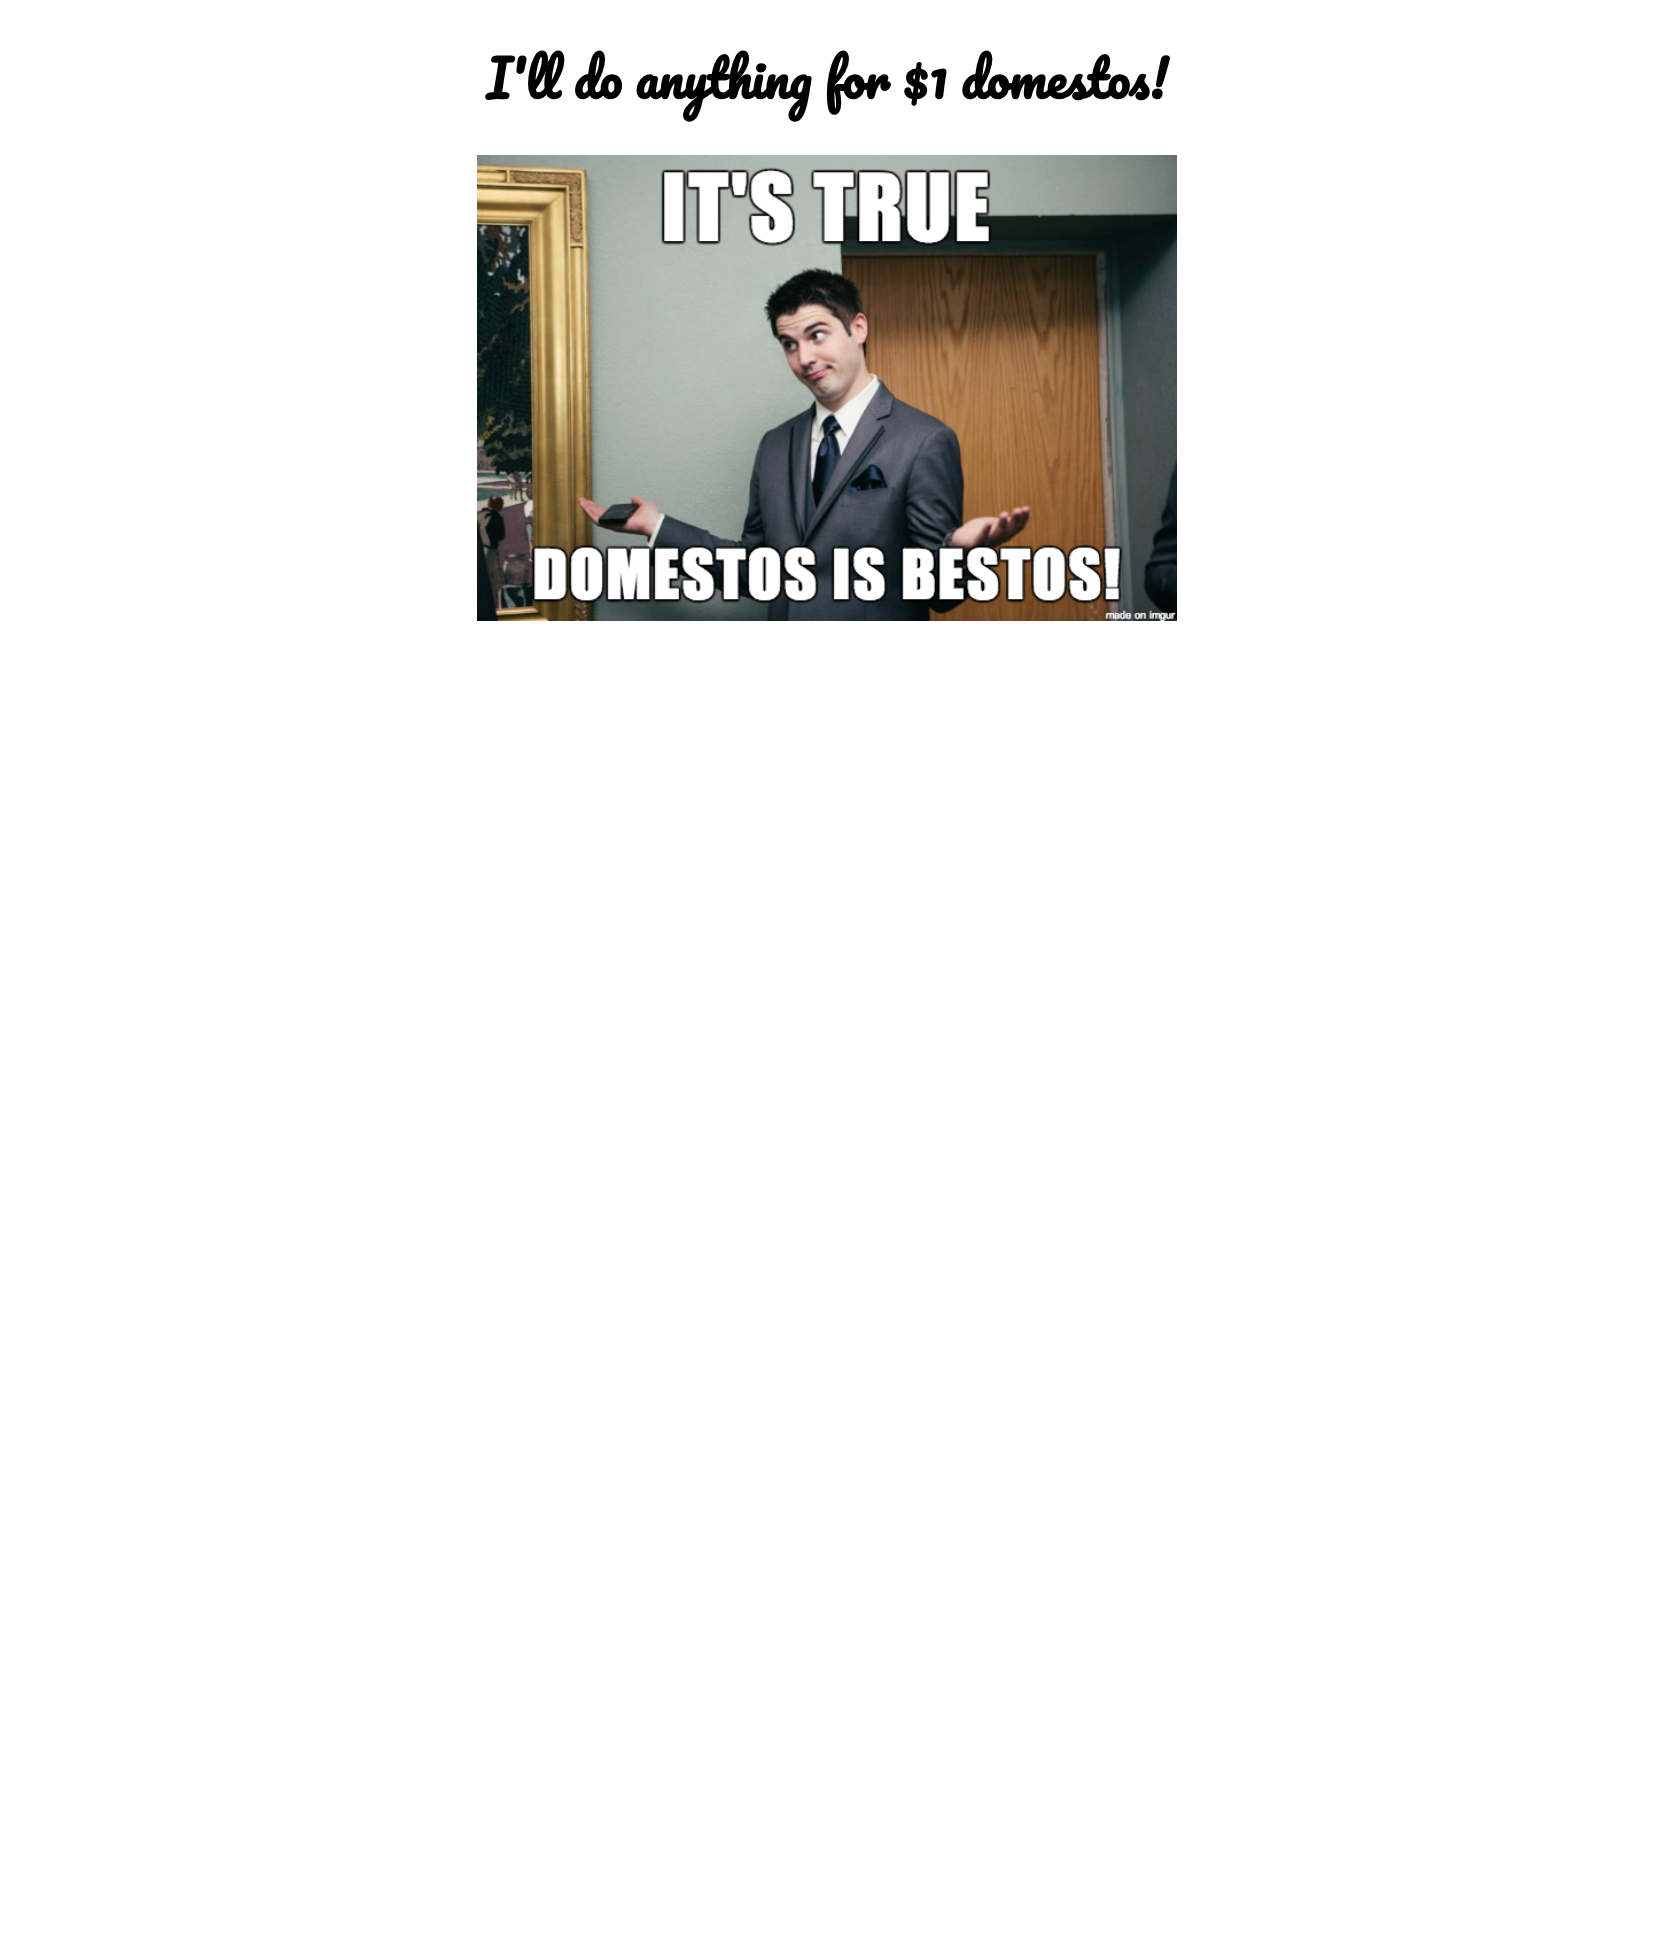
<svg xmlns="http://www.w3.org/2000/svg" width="1653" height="1954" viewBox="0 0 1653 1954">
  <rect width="100%" height="100%" fill="#ffffff"/>
  <text x="486" y="99" font-family="Pacifico" font-size="50" font-weight="bold" fill="#000000">I'll do anything for $1 domestos!</text>
  <image x="477" y="155" width="700" height="466" href="img1.png"/>
</svg>
